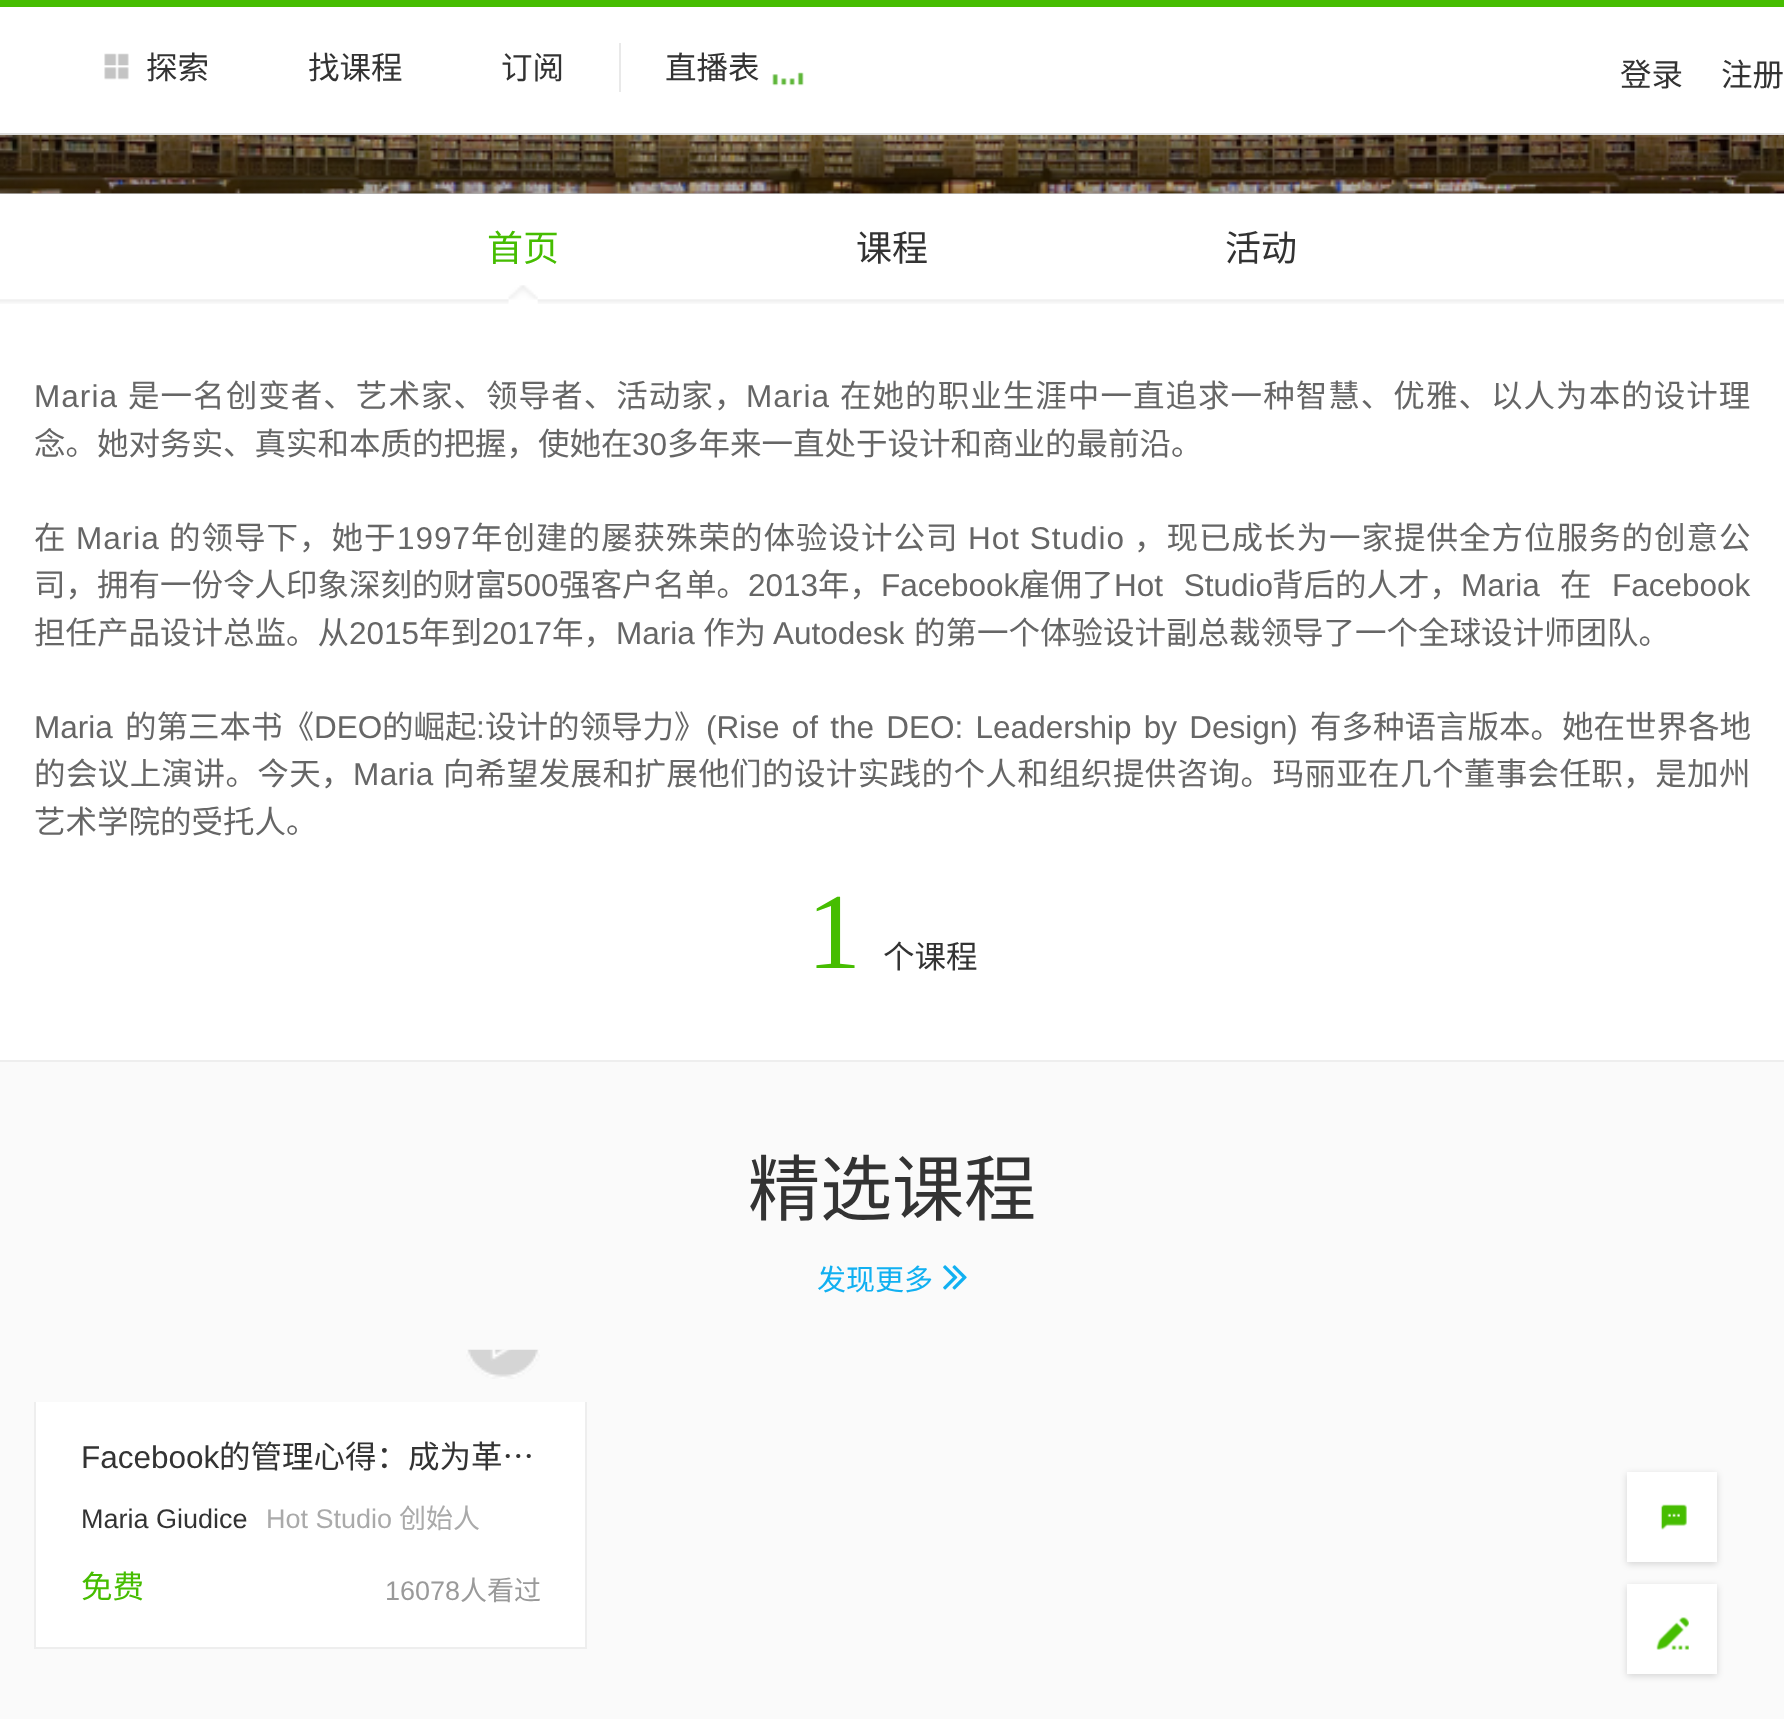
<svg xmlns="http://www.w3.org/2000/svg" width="1784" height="1719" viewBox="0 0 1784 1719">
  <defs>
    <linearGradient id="g1" gradientUnits="userSpaceOnUse" x1="892" y1="-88" x2="892" y2="194"><stop offset="0" stop-color="#000000" stop-opacity="0"/><stop offset="1" stop-color="#000000" stop-opacity="0.3"/></linearGradient>
    <filter id="blur1" x="-50%" y="-200%" width="200%" height="500%"><feGaussianBlur stdDeviation="3.5"/></filter>
  </defs>
  <rect width="100%" height="100%" fill="#ffffff"/>
  <rect x="0" y="0" width="1784" height="7" fill="#46bd01"/>
  <rect x="0" y="133" width="1784" height="2" fill="#dddddd"/>
  <image x="104" y="53" width="25" height="27" href="img1.png"/>
  <text x="146" y="79" font-family="Noto Sans CJK SC" font-size="31.5" fill="#333333">探索</text>
  <text x="308" y="79" font-family="Noto Sans CJK SC" font-size="31.5" fill="#333333">找课程</text>
  <text x="501" y="79" font-family="Noto Sans CJK SC" font-size="31.5" fill="#333333">订阅</text>
  <rect x="619" y="43" width="2" height="49" fill="#e9e9e9"/>
  <text x="665" y="79" font-family="Noto Sans CJK SC" font-size="31.5" fill="#333333">直播表</text>
  <image x="772" y="72" width="32" height="14" href="img2.png"/>
  <text x="1620" y="86" font-family="Noto Sans CJK SC" font-size="31.5" fill="#333333">登录</text>
  <text x="1721" y="86" font-family="Noto Sans CJK SC" font-size="31.5" fill="#333333">注册</text>
  <image x="0" y="135" width="1784" height="59" href="img3.png"/>
  <rect x="0" y="135" width="1784" height="59" fill="url(#g1)"/>
  <image x="0" y="299" width="1784" height="5" href="img4.png"/>
  <image x="508" y="285" width="30" height="19" href="img5.png"/>
  <text x="487" y="261" font-family="Noto Sans CJK SC" font-size="36" fill="#46bd01">首页</text>
  <text x="856" y="261" font-family="Noto Sans CJK SC" font-size="36" fill="#333333">课程</text>
  <text x="1225" y="261" font-family="Noto Sans CJK SC" font-size="36" fill="#333333">活动</text>
  <rect x="0" y="1060" width="1784" height="2" fill="#eeeeee"/>
  <text x="34" y="407" font-family="Liberation Sans" font-size="31.5" letter-spacing="1.05" fill="#666666">Maria</text>
  <text x="128" y="407" font-family="Noto Sans CJK SC" font-size="31.5" letter-spacing="1.05" fill="#666666">是一名创变者、艺术家、领导者、活动家，</text>
  <text x="746" y="407" font-family="Liberation Sans" font-size="31.5" letter-spacing="1.05" fill="#666666">Maria</text>
  <text x="840" y="407" font-family="Noto Sans CJK SC" font-size="31.5" letter-spacing="1.05" fill="#666666">在她的职业生涯中一直追求一种智慧、优雅、以人为本的设计理</text>
  <text x="34" y="455" font-family="Noto Sans CJK SC" font-size="31.5" fill="#666666">念。她对务实、真实和本质的把握，使她在</text>
  <text x="632" y="455" font-family="Liberation Sans" font-size="31.5" fill="#666666">30</text>
  <text x="667" y="455" font-family="Noto Sans CJK SC" font-size="31.5" fill="#666666">多年来一直处于设计和商业的最前沿。</text>
  <text x="34" y="549" font-family="Noto Sans CJK SC" font-size="31.5" letter-spacing="1" fill="#666666">在</text>
  <text x="76" y="549" font-family="Liberation Sans" font-size="31.5" letter-spacing="1" fill="#666666">Maria</text>
  <text x="169" y="549" font-family="Noto Sans CJK SC" font-size="31.5" letter-spacing="1" fill="#666666">的领导下，她于</text>
  <text x="397" y="549" font-family="Liberation Sans" font-size="31.5" letter-spacing="1" fill="#666666">1997</text>
  <text x="471" y="549" font-family="Noto Sans CJK SC" font-size="31.5" letter-spacing="1" fill="#666666">年创建的屡获殊荣的体验设计公司</text>
  <text x="968" y="549" font-family="Liberation Sans" font-size="31.5" letter-spacing="1" fill="#666666">Hot Studio</text>
  <text x="1134" y="549" font-family="Noto Sans CJK SC" font-size="31.5" letter-spacing="1" fill="#666666">，现已成长为一家提供全方位服务的创意公</text>
  <text x="34" y="596" font-family="Noto Sans CJK SC" font-size="31.5" fill="#666666">司，拥有一份令人印象深刻的财富</text>
  <text x="506" y="596" font-family="Liberation Sans" font-size="31.5" fill="#666666">500</text>
  <text x="559" y="596" font-family="Noto Sans CJK SC" font-size="31.5" fill="#666666">强客户名单。</text>
  <text x="748" y="596" font-family="Liberation Sans" font-size="31.5" fill="#666666">2013</text>
  <text x="818" y="596" font-family="Noto Sans CJK SC" font-size="31.5" fill="#666666">年，</text>
  <text x="881" y="596" font-family="Liberation Sans" font-size="31.5" fill="#666666">Facebook</text>
  <text x="1019" y="596" font-family="Noto Sans CJK SC" font-size="31.5" fill="#666666">雇佣了</text>
  <text x="1114" y="596" word-spacing="12" font-family="Liberation Sans" font-size="31.5" fill="#666666">Hot Studio</text>
  <text x="1272" y="596" font-family="Noto Sans CJK SC" font-size="31.5" fill="#666666">背后的人才，</text>
  <text x="1461" y="596" font-family="Liberation Sans" font-size="31.5" fill="#666666">Maria</text>
  <text x="1560" y="596" font-family="Noto Sans CJK SC" font-size="31.5" fill="#666666">在</text>
  <text x="1612" y="596" font-family="Liberation Sans" font-size="31.5" fill="#666666">Facebook</text>
  <text x="34" y="644" font-family="Noto Sans CJK SC" font-size="31.5" fill="#666666">担任产品设计总监。从</text>
  <text x="349" y="644" font-family="Liberation Sans" font-size="31.5" fill="#666666">2015</text>
  <text x="419" y="644" font-family="Noto Sans CJK SC" font-size="31.5" fill="#666666">年到</text>
  <text x="482" y="644" font-family="Liberation Sans" font-size="31.5" fill="#666666">2017</text>
  <text x="552" y="644" font-family="Noto Sans CJK SC" font-size="31.5" fill="#666666">年，</text>
  <text x="616" y="644" font-family="Liberation Sans" font-size="31.5" fill="#666666">Maria</text>
  <text x="703" y="644" font-family="Noto Sans CJK SC" font-size="31.5" fill="#666666">作为</text>
  <text x="773" y="644" font-family="Liberation Sans" font-size="31.5" fill="#666666">Autodesk</text>
  <text x="914" y="644" font-family="Noto Sans CJK SC" font-size="31.5" fill="#666666">的第一个体验设计副总裁领导了一个全球设计师团队。</text>
  <text x="34" y="738" font-family="Liberation Sans" font-size="31.5" fill="#666666">Maria</text>
  <text x="125" y="738" font-family="Noto Sans CJK SC" font-size="31.5" fill="#666666">的第三本书《</text>
  <text x="314" y="738" font-family="Liberation Sans" font-size="31.5" fill="#666666">DEO</text>
  <text x="382" y="738" font-family="Noto Sans CJK SC" font-size="31.5" fill="#666666">的崛起</text>
  <text x="476" y="738" font-family="Liberation Sans" font-size="31.5" fill="#666666">:</text>
  <text x="485" y="738" font-family="Noto Sans CJK SC" font-size="31.5" fill="#666666">设计的领导力》</text>
  <text x="706" y="738" word-spacing="3.5" font-family="Liberation Sans" font-size="31.5" fill="#666666">(Rise of the DEO: Leadership by Design)</text>
  <text x="1310" y="738" font-family="Noto Sans CJK SC" font-size="31.5" fill="#666666">有多种语言版本。她在世界各地</text>
  <text x="34" y="785" font-family="Noto Sans CJK SC" font-size="31.5" letter-spacing="0.4" fill="#666666">的会议上演讲。今天，</text>
  <text x="353" y="785" font-family="Liberation Sans" font-size="31.5" letter-spacing="0.4" fill="#666666">Maria</text>
  <text x="443" y="785" font-family="Noto Sans CJK SC" font-size="31.5" letter-spacing="0.4" fill="#666666">向希望发展和扩展他们的设计实践的个人和组织提供咨询。玛丽亚在几个董事会任职，是加州</text>
  <text x="34" y="833" font-family="Noto Sans CJK SC" font-size="31.5" fill="#666666">艺术学院的受托人。</text>
  <text x="807" y="968" font-family="Liberation Serif" font-size="108" fill="#46bd01">1</text>
  <text x="883" y="968" font-family="Noto Sans CJK SC" font-size="31.5" fill="#333333">个课程</text>
  <rect x="0" y="1062" width="1784" height="657" fill="#fafafa"/>
  <text x="748" y="1215" font-family="Noto Sans CJK SC" font-size="72" fill="#333333">精选课程</text>
  <text x="817" y="1290" font-family="Noto Sans CJK SC" font-size="29" fill="#11b0f1">发现更多</text>
  <image x="943" y="1265" width="24" height="25" href="img6.png"/>
  <image x="466" y="1349" width="74" height="30" href="img7.png"/>
  <rect x="36" y="1402" width="549" height="245" fill="#ffffff"/>
  <rect x="585" y="1402" width="2" height="247" fill="#eeeeee"/>
  <rect x="34" y="1647" width="553" height="2" fill="#eeeeee"/>
  <rect x="34" y="1402" width="2" height="247" fill="#eeeeee"/>
  <text x="81" y="1468" font-family="Liberation Sans" font-size="31.5" fill="#333333">Facebook</text>
  <text x="219" y="1468" font-family="Noto Sans CJK SC" font-size="31.5" fill="#333333">的管理心得：成为革…</text>
  <text x="81" y="1528" font-family="Liberation Sans" font-size="27" fill="#333333">Maria Giudice</text>
  <text x="266" y="1528" font-family="Liberation Sans" font-size="27" fill="#aaaaaa">Hot Studio</text>
  <text x="399" y="1528" font-family="Noto Sans CJK SC" font-size="27" fill="#aaaaaa">创始人</text>
  <text x="81" y="1598" font-family="Noto Sans CJK SC" font-size="31.5" fill="#46bd01">免费</text>
  <text x="385" y="1600" font-family="Liberation Sans" font-size="27" fill="#9a9a9a">16078</text>
  <text x="460" y="1600" font-family="Noto Sans CJK SC" font-size="27" fill="#9a9a9a">人看过</text>
  <rect x="1627" y="1474" width="90" height="90" fill="#000000" fill-opacity="0.15" filter="url(#blur1)"/>
  <rect x="1627" y="1472" width="90" height="90" fill="#ffffff"/>
  <image x="1660" y="1504" width="27" height="26" href="img8.png"/>
  <rect x="1627" y="1586" width="90" height="90" fill="#000000" fill-opacity="0.15" filter="url(#blur1)"/>
  <rect x="1627" y="1584" width="90" height="90" fill="#ffffff"/>
  <image x="1656" y="1617" width="33" height="33" href="img9.png"/>
</svg>
